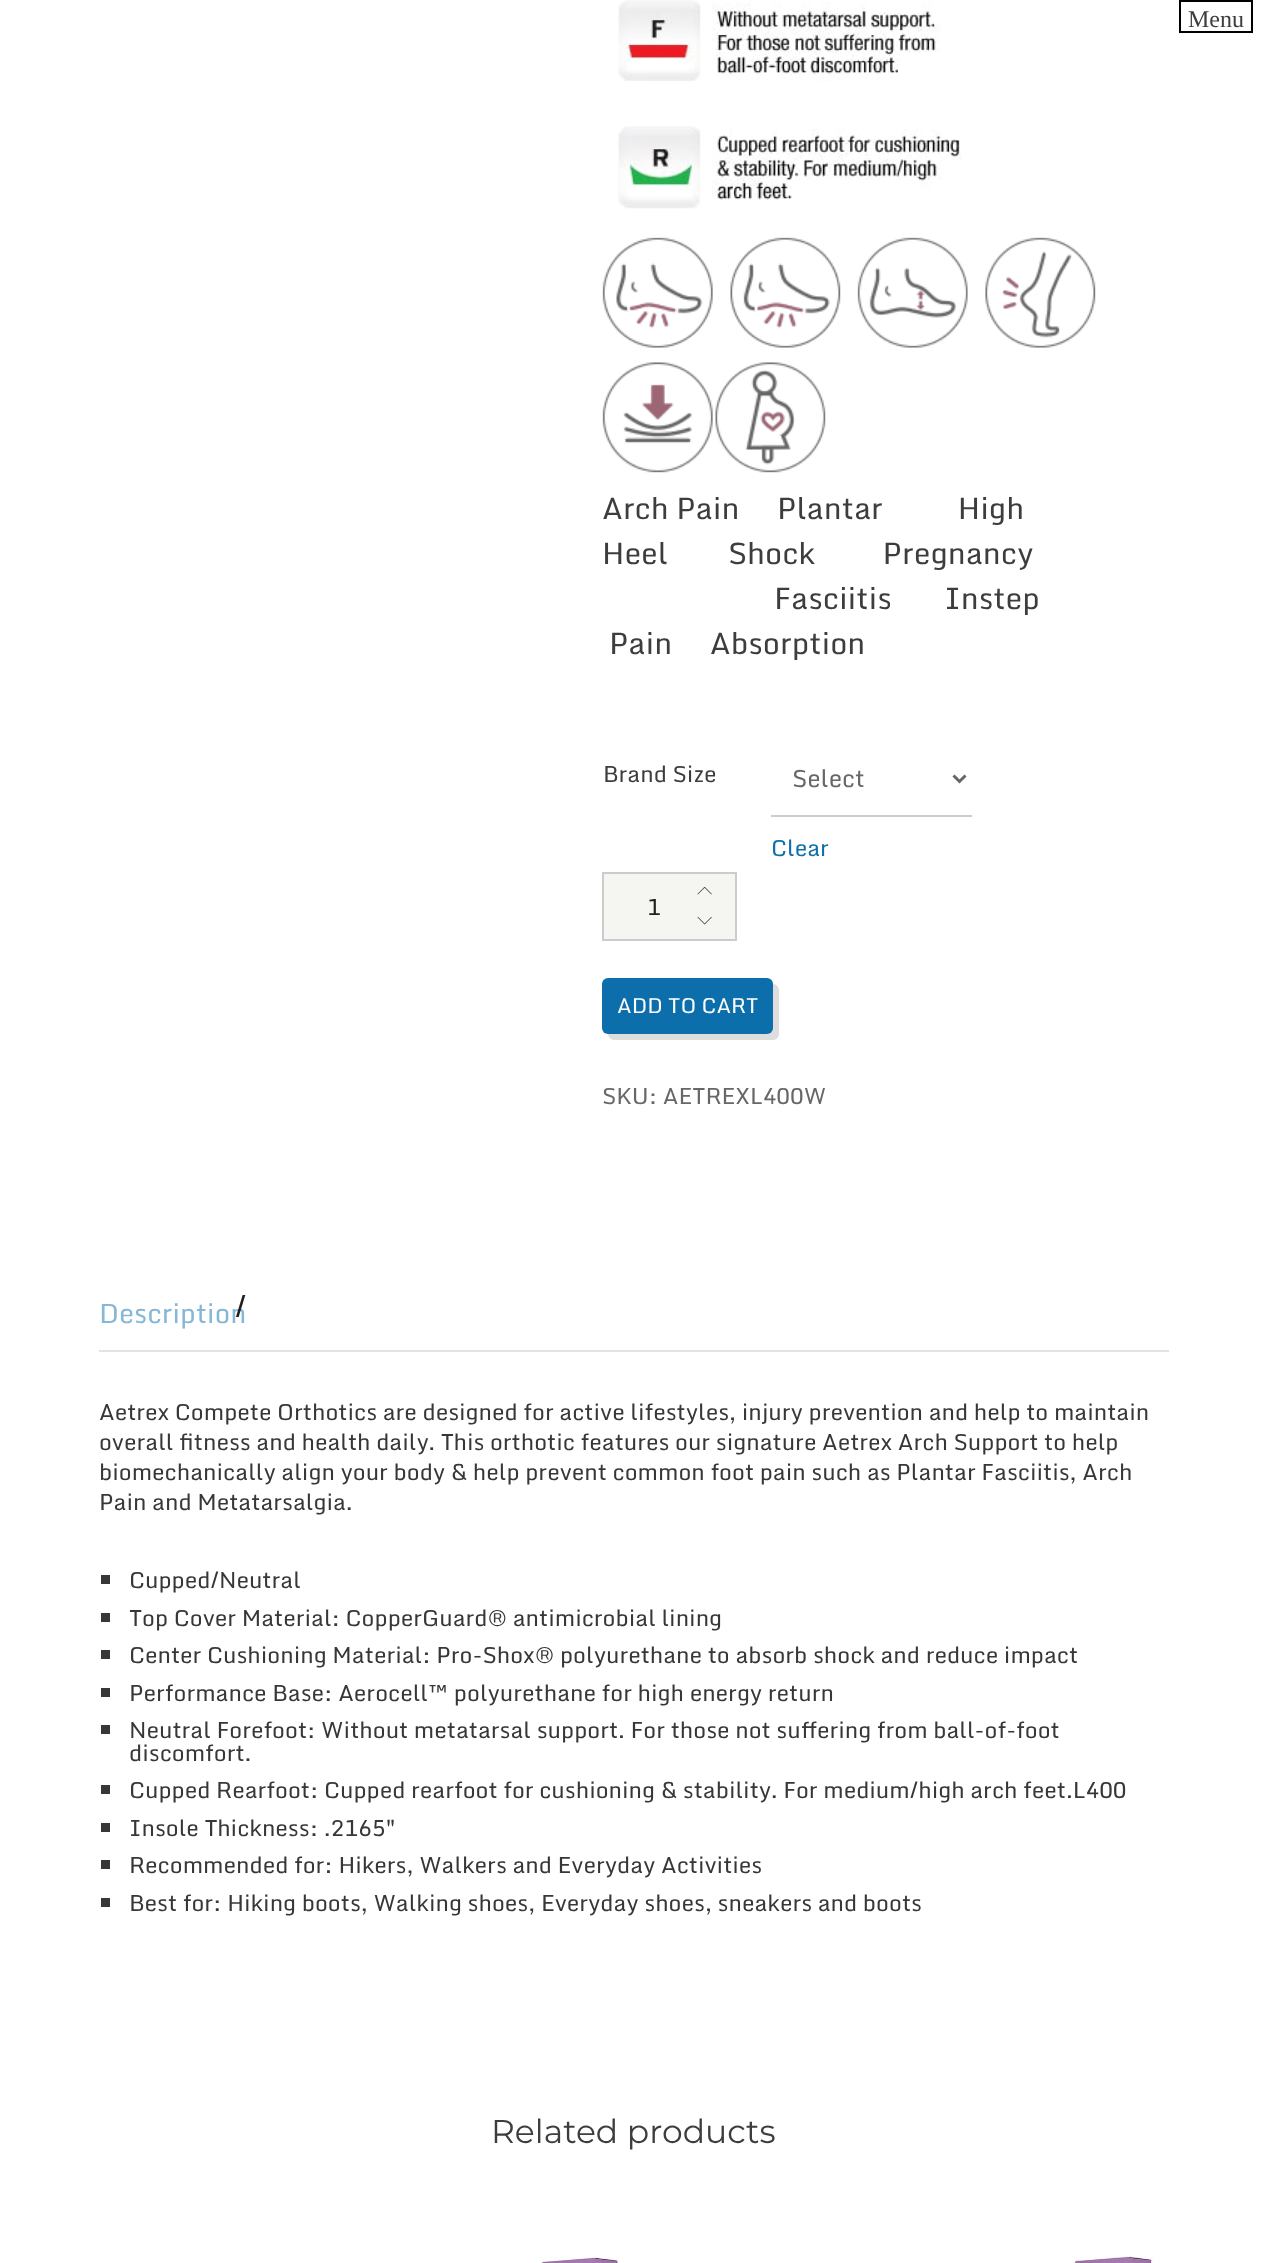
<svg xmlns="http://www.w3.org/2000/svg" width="1267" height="2263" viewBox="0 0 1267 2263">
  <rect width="100%" height="100%" fill="#ffffff"/>
  <rect x="1180" y="1" width="72" height="31" fill="none" stroke="#000000" stroke-width="2"/>
  <text x="1188" y="27" font-family="Liberation Serif" font-size="24" fill="#3e3d3d">Menu</text>
  <image x="618" y="0" width="322" height="82" href="img1.png"/>
  <image x="618" y="126" width="344" height="83" href="img2.png"/>
  <image x="602" y="237" width="111" height="111" href="img3.png"/>
  <image x="730" y="237" width="111" height="111" href="img4.png"/>
  <image x="857" y="237" width="111" height="111" href="img5.png"/>
  <image x="985" y="237" width="111" height="111" href="img6.png"/>
  <image x="602" y="362" width="111" height="111" href="img7.png"/>
  <image x="715" y="362" width="111" height="111" href="img8.png"/>
  <text x="602" y="519" font-family="Monda" font-size="30" fill="#3e3d3d" xml:space="preserve">Arch Pain     Plantar          High</text>
  <text x="602" y="564" font-family="Monda" font-size="30" fill="#3e3d3d" xml:space="preserve">Heel        Shock         Pregnancy</text>
  <text x="774" y="609" font-family="Monda" font-size="30" fill="#3e3d3d" xml:space="preserve">Fasciitis       Instep</text>
  <text x="609" y="654" font-family="Monda" font-size="30" fill="#3e3d3d" xml:space="preserve">Pain     Absorption</text>
  <text x="603" y="782" font-family="Monda" font-size="22.5" fill="#3e3d3d">Brand Size</text>
  <rect x="771" y="815" width="201" height="2" fill="#cccccc"/>
  <path d="M953.5 775.5L959.5 781.5L965.5 775.5" fill="none" stroke="#666666" stroke-width="3"/>
  <text x="792" y="787" font-family="Monda" font-size="24" fill="#666767">Select</text>
  <text x="771" y="856" font-family="Monda" font-size="22.5" fill="#0c6fac">Clear</text>
  <rect x="603" y="873" width="133" height="67" fill="#f5f5f2" stroke="#cccccc" stroke-width="2"/>
  <text x="647" y="915" font-family="Monda" font-size="22.5" fill="#1f1f1f">1</text>
  <image x="697" y="886" width="15" height="9" href="img9.png"/>
  <image x="697" y="916" width="15" height="9" href="img10.png"/>
  <path d="M608 1034C608 1037 611 1040 614 1040H773C776 1040 779 1037 779 1034V990C779 987 776 984 773 984H772V1028C772 1031 770 1034 766 1034Z" fill="#dedede"/>
  <rect x="602" y="978" width="171" height="56" rx="6" fill="#0c6fac"/>
  <text x="617" y="1013" font-family="Monda" font-size="21" fill="#ffffff">ADD TO CART</text>
  <text x="602" y="1104" font-family="Monda" font-size="22.5" fill="#666767">SKU: AETREXL400W</text>
  <rect x="99" y="1350" width="1070" height="2" fill="#e5e3df"/>
  <text x="99" y="1323" font-family="Monda" font-size="27" fill="#86b7d6">Description</text>
  <text x="235" y="1317" font-family="Monda" font-size="30" fill="#1f1f1f">/</text>
  <text x="99" y="1420" font-family="Monda" font-size="22.5" fill="#373736">Aetrex Compete Orthotics are designed for active lifestyles, injury prevention and help to maintain</text>
  <text x="99" y="1450" font-family="Monda" font-size="22.5" fill="#373736">overall fitness and health daily. This orthotic features our signature Aetrex Arch Support to help</text>
  <text x="99" y="1480" font-family="Monda" font-size="22.5" fill="#373736">biomechanically align your body &amp; help prevent common foot pain such as Plantar Fasciitis, Arch</text>
  <text x="99" y="1510" font-family="Monda" font-size="22.5" fill="#373736">Pain and Metatarsalgia.</text>
  <rect x="101" y="1575" width="9" height="9" fill="#373736"/>
  <text x="129" y="1588" font-family="Monda" font-size="22.5" fill="#373736">Cupped/Neutral</text>
  <rect x="101" y="1613" width="9" height="9" fill="#373736"/>
  <text x="129" y="1626" font-family="Monda" font-size="22.5" fill="#373736">Top Cover Material: CopperGuard® antimicrobial lining</text>
  <rect x="101" y="1650" width="9" height="9" fill="#373736"/>
  <text x="129" y="1663" font-family="Monda" font-size="22.5" fill="#373736">Center Cushioning Material: Pro-Shox® polyurethane to absorb shock and reduce impact</text>
  <rect x="101" y="1688" width="9" height="9" fill="#373736"/>
  <text x="129" y="1701" font-family="Monda" font-size="22.5" fill="#373736">Performance Base: Aerocell™ polyurethane for high energy return</text>
  <rect x="101" y="1725" width="9" height="9" fill="#373736"/>
  <text x="129" y="1738" font-family="Monda" font-size="22.5" fill="#373736">Neutral Forefoot: Without metatarsal support. For those not suffering from ball-of-foot</text>
  <text x="129" y="1761" font-family="Monda" font-size="22.5" fill="#373736">discomfort.</text>
  <rect x="101" y="1785" width="9" height="9" fill="#373736"/>
  <text x="129" y="1798" font-family="Monda" font-size="22.5" fill="#373736">Cupped Rearfoot: Cupped rearfoot for cushioning &amp; stability. For medium/high arch feet.L400</text>
  <rect x="101" y="1823" width="9" height="9" fill="#373736"/>
  <text x="129" y="1836" font-family="Monda" font-size="22.5" fill="#373736">Insole Thickness: .2165″</text>
  <rect x="101" y="1860" width="9" height="9" fill="#373736"/>
  <text x="129" y="1873" font-family="Monda" font-size="22.5" fill="#373736">Recommended for: Hikers, Walkers and Everyday Activities</text>
  <rect x="101" y="1898" width="9" height="9" fill="#373736"/>
  <text x="129" y="1911" font-family="Monda" font-size="22.5" fill="#373736">Best for: Hiking boots, Walking shoes, Everyday shoes, sneakers and boots</text>
  <text x="491" y="2143" font-family="Montserrat" font-size="33" fill="#3e3d3d">Related products</text>
  <image x="538" y="2257" width="81" height="6" href="img11.png"/>
  <image x="1072" y="2256" width="82" height="7" href="img12.png"/>
</svg>
